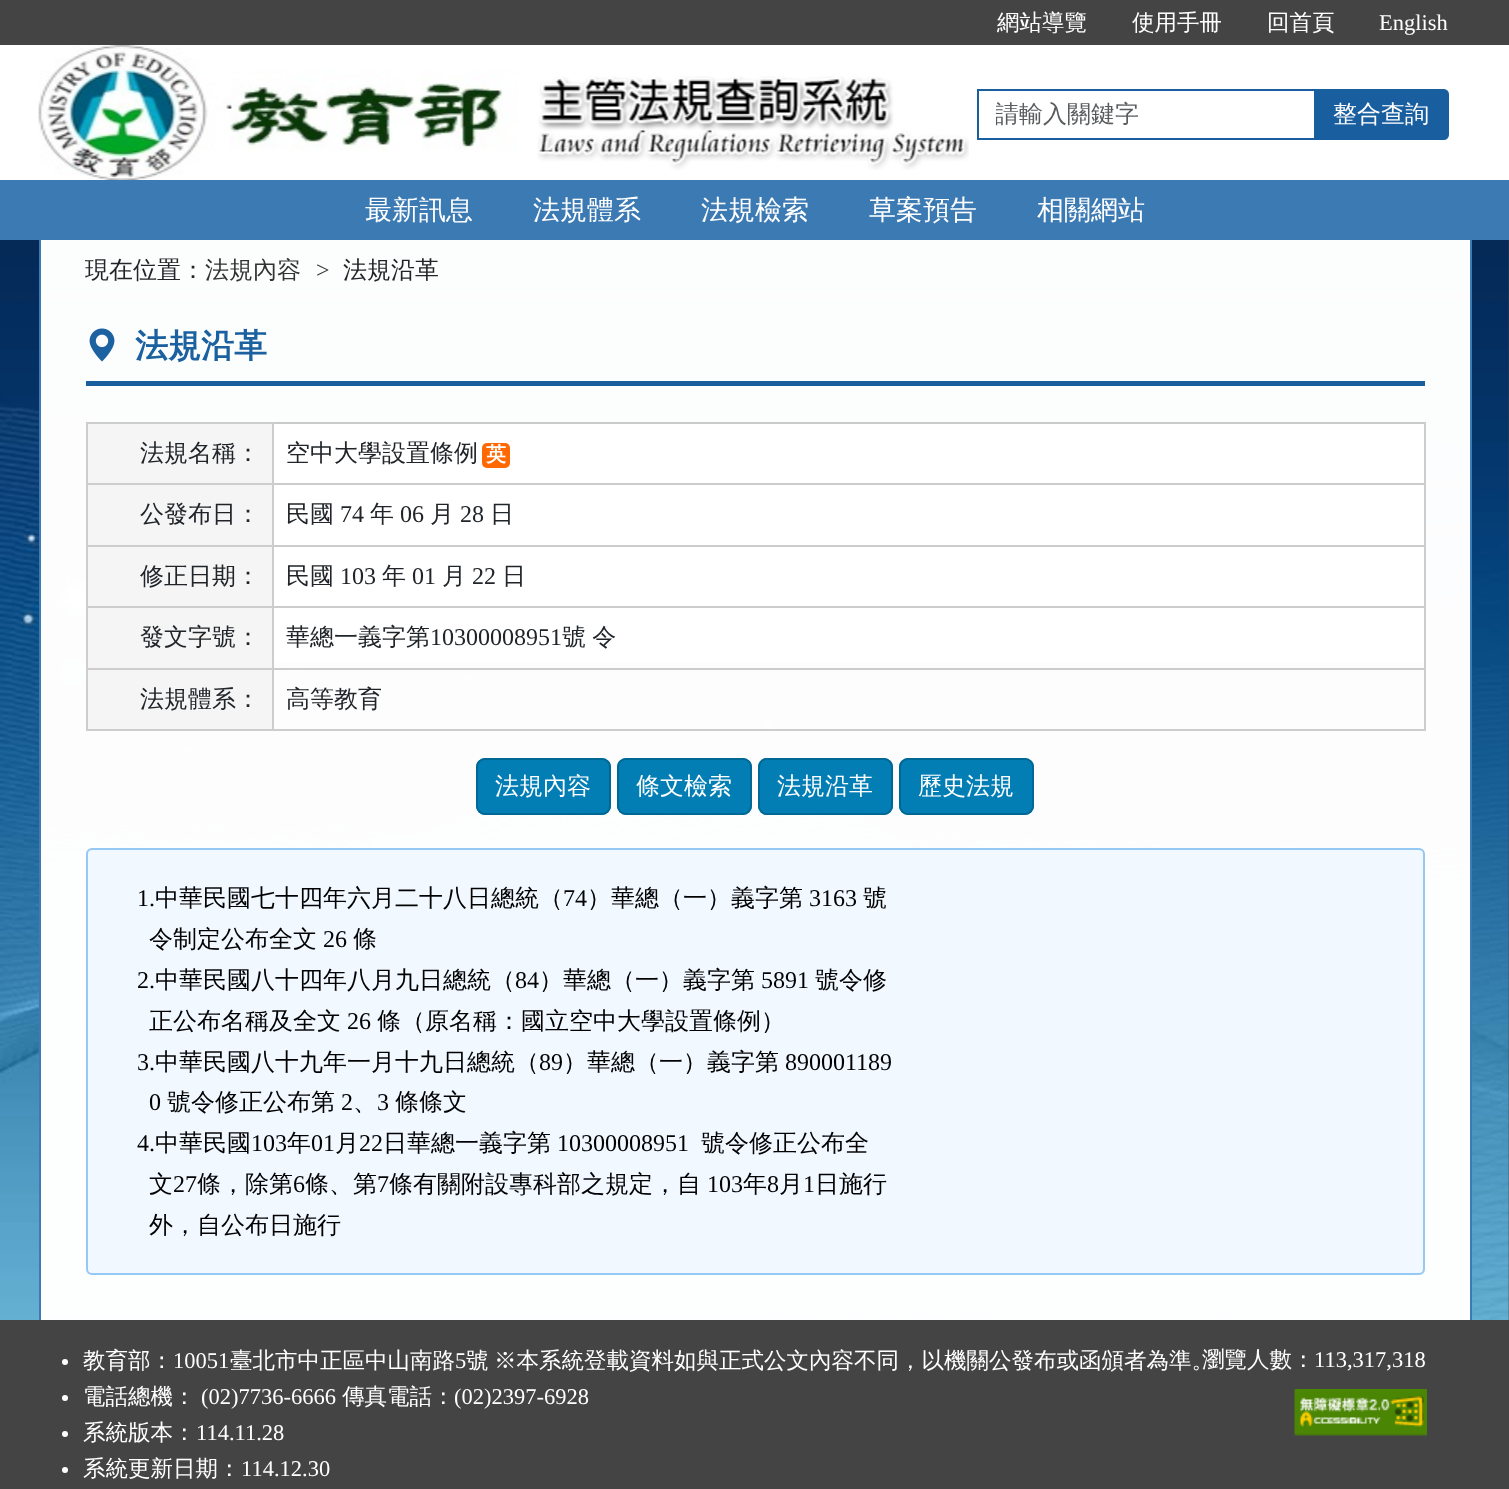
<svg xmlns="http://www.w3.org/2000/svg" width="1509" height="1489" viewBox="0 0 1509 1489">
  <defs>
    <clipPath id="clip1"><rect x="996" y="99" width="300" height="32"/></clipPath>
  </defs>
  <rect width="100%" height="100%" fill="#444444"/>
  <rect x="0" y="45" width="1509" height="135" fill="#ffffff"/>
  <text x="997" y="30" font-family="WenQuanYi Zen Hei" font-size="22.5" font-weight="500" fill="#ffffff">網站導覽</text>
  <text x="1132" y="30" font-family="WenQuanYi Zen Hei" font-size="22.5" font-weight="500" fill="#ffffff">使用手冊</text>
  <text x="1267" y="30" font-family="WenQuanYi Zen Hei" font-size="22.5" font-weight="500" fill="#ffffff">回首頁</text>
  <text x="1379" y="30" font-family="Liberation Serif" font-size="22.5" fill="#ffffff">English</text>
  <image x="38" y="45" width="480" height="135" href="img1.png"/>
  <image x="537" y="76" width="432" height="94" href="img2.png"/>
  <rect x="978" y="90" width="337" height="49" fill="none" stroke="#195f9f" stroke-width="2"/>
  <g clip-path="url(#clip1)">
    <text x="995" y="122" font-family="WenQuanYi Zen Hei" font-size="24" font-weight="500" fill="#595c5f">請輸入關鍵字</text>
  </g>
  <path d="M1315 90H1444C1446 90 1448 92 1448 94V135C1448 137 1446 139 1444 139H1315Z" fill="#195f9f" stroke="#195f9f" stroke-width="2"/>
  <text x="1333" y="122" font-family="WenQuanYi Zen Hei" font-size="24" font-weight="500" fill="#ffffff">整合查詢</text>
  <rect x="0" y="180" width="1509" height="60" fill="#3c7ab4"/>
  <text x="365" y="219" font-family="WenQuanYi Zen Hei" font-size="27" font-weight="500" fill="#ffffff">最新訊息</text>
  <text x="533" y="219" font-family="WenQuanYi Zen Hei" font-size="27" font-weight="500" fill="#ffffff">法規體系</text>
  <text x="701" y="219" font-family="WenQuanYi Zen Hei" font-size="27" font-weight="500" fill="#ffffff">法規檢索</text>
  <text x="869" y="219" font-family="WenQuanYi Zen Hei" font-size="27" font-weight="500" fill="#ffffff">草案預告</text>
  <text x="1037" y="219" font-family="WenQuanYi Zen Hei" font-size="27" font-weight="500" fill="#ffffff">相關網站</text>
  <image x="0" y="240" width="1509" height="1080" href="img3.png"/>
  <rect x="1470" y="240" width="2" height="1080" fill="#3e7bb5"/>
  <rect x="39" y="240" width="2" height="1080" fill="#3e7bb5"/>
  <text x="85" y="278" font-family="WenQuanYi Zen Hei" font-size="24" font-weight="500" fill="#212529">現在位置：</text>
  <text x="205" y="278" font-family="WenQuanYi Zen Hei" font-size="24" font-weight="500" fill="#333333">法規內容</text>
  <text x="316" y="278" font-family="Liberation Serif" font-size="24" fill="#333333">&gt;</text>
  <text x="343" y="278" font-family="WenQuanYi Zen Hei" font-size="24" font-weight="500" fill="#212529">法規沿革</text>
  <rect x="86" y="381" width="1339" height="5" fill="#195f9e"/>
  <image x="89" y="328" width="26" height="34" href="img4.png"/>
  <text x="135" y="357" font-family="WenQuanYi Zen Hei" font-size="33" font-weight="bold" fill="#1b61a0">法規沿革</text>
  <rect x="86" y="422" width="1339" height="241" fill="#ffffff"/>
  <rect x="86" y="423" width="187" height="308" fill="#f5f5f5"/>
  <rect x="86" y="422" width="186" height="2" fill="#dee2e6" fill-opacity="0.99"/>
  <rect x="272" y="422" width="1153" height="2" fill="#cacacb"/>
  <rect x="86" y="483" width="186" height="2" fill="#dee2e6" fill-opacity="0.99"/>
  <rect x="272" y="483" width="1153" height="2" fill="#cccccc"/>
  <rect x="86" y="545" width="186" height="2" fill="#dee2e6" fill-opacity="0.99"/>
  <rect x="272" y="545" width="1153" height="2" fill="#cccccc"/>
  <rect x="86" y="606" width="186" height="2" fill="#dee2e6" fill-opacity="0.99"/>
  <rect x="272" y="606" width="1153" height="2" fill="#cccccc"/>
  <rect x="86" y="668" width="186" height="2" fill="#dee2e6" fill-opacity="0.99"/>
  <rect x="272" y="668" width="1153" height="2" fill="#cccccc"/>
  <rect x="86" y="729" width="1339" height="2" fill="#dee2e6" fill-opacity="0.99"/>
  <rect x="1424" y="668" width="2" height="63" fill="#cccccc" fill-opacity="0.99"/>
  <rect x="272" y="729" width="1153" height="2" fill="#cccccc" fill-opacity="0.99"/>
  <rect x="272" y="668" width="2" height="63" fill="#cccccc" fill-opacity="0.99"/>
  <rect x="86" y="668" width="187" height="2" fill="#cccccc" fill-opacity="0.99"/>
  <rect x="272" y="606" width="2" height="63" fill="#cccccc" fill-opacity="0.99"/>
  <rect x="86" y="606" width="187" height="2" fill="#cccccc" fill-opacity="0.99"/>
  <rect x="272" y="545" width="2" height="63" fill="#cccccc" fill-opacity="0.99"/>
  <rect x="86" y="545" width="187" height="2" fill="#cccccc" fill-opacity="0.99"/>
  <rect x="272" y="483" width="2" height="63" fill="#cccccc" fill-opacity="0.99"/>
  <rect x="86" y="483" width="187" height="2" fill="#cccccc" fill-opacity="0.99"/>
  <rect x="272" y="422" width="2" height="63" fill="#cccccc" fill-opacity="0.99"/>
  <rect x="86" y="422" width="187" height="2" fill="#cccccc" fill-opacity="0.99"/>
  <rect x="86" y="729" width="187" height="2" fill="#cccccc" fill-opacity="0.99"/>
  <rect x="86" y="668" width="2" height="63" fill="#cccccc" fill-opacity="0.99"/>
  <rect x="86" y="606" width="2" height="63" fill="#cccccc" fill-opacity="0.99"/>
  <rect x="86" y="545" width="2" height="63" fill="#cccccc" fill-opacity="0.99"/>
  <rect x="86" y="483" width="2" height="63" fill="#cccccc" fill-opacity="0.99"/>
  <rect x="86" y="422" width="2" height="63" fill="#cccccc" fill-opacity="0.99"/>
  <text x="140" y="461" font-family="WenQuanYi Zen Hei" font-size="24" font-weight="500" fill="#212529">法規名稱：</text>
  <rect x="1424" y="606" width="2" height="63" fill="#cccccc" fill-opacity="0.99"/>
  <rect x="1424" y="545" width="2" height="63" fill="#cccccc" fill-opacity="0.99"/>
  <rect x="1424" y="483" width="2" height="63" fill="#cccccc" fill-opacity="0.99"/>
  <rect x="1424" y="422" width="2" height="63" fill="#cccccc" fill-opacity="0.99"/>
  <text x="286" y="461" font-family="WenQuanYi Zen Hei" font-size="24" font-weight="500" fill="#212529">空中大學設置條例</text>
  <rect x="482" y="443" width="28" height="25" rx="5" fill="#ff6803"/>
  <text x="486" y="461" font-family="WenQuanYi Zen Hei" font-size="20" font-weight="bold" fill="#ffffff">英</text>
  <text x="140" y="522" font-family="WenQuanYi Zen Hei" font-size="24" font-weight="500" fill="#212529">公發布日：</text>
  <text x="286" y="522" font-family="WenQuanYi Zen Hei" font-size="24" font-weight="500" fill="#212529">民國</text>
  <text x="340" y="522" font-family="Liberation Serif" font-size="24" fill="#212529">74</text>
  <text x="370" y="522" font-family="WenQuanYi Zen Hei" font-size="24" font-weight="500" fill="#212529">年</text>
  <text x="400" y="522" font-family="Liberation Serif" font-size="24" fill="#212529">06</text>
  <text x="430" y="522" font-family="WenQuanYi Zen Hei" font-size="24" font-weight="500" fill="#212529">月</text>
  <text x="460" y="522" font-family="Liberation Serif" font-size="24" fill="#212529">28</text>
  <text x="490" y="522" font-family="WenQuanYi Zen Hei" font-size="24" font-weight="500" fill="#212529">日</text>
  <text x="140" y="584" font-family="WenQuanYi Zen Hei" font-size="24" font-weight="500" fill="#212529">修正日期：</text>
  <text x="286" y="584" font-family="WenQuanYi Zen Hei" font-size="24" font-weight="500" fill="#212529">民國</text>
  <text x="340" y="584" font-family="Liberation Serif" font-size="24" fill="#212529">103</text>
  <text x="382" y="584" font-family="WenQuanYi Zen Hei" font-size="24" font-weight="500" fill="#212529">年</text>
  <text x="412" y="584" font-family="Liberation Serif" font-size="24" fill="#212529">01</text>
  <text x="442" y="584" font-family="WenQuanYi Zen Hei" font-size="24" font-weight="500" fill="#212529">月</text>
  <text x="472" y="584" font-family="Liberation Serif" font-size="24" fill="#212529">22</text>
  <text x="502" y="584" font-family="WenQuanYi Zen Hei" font-size="24" font-weight="500" fill="#212529">日</text>
  <text x="140" y="645" font-family="WenQuanYi Zen Hei" font-size="24" font-weight="500" fill="#212529">發文字號：</text>
  <text x="286" y="645" font-family="WenQuanYi Zen Hei" font-size="24" font-weight="500" fill="#212529">華總一義字第</text>
  <text x="430" y="645" font-family="Liberation Serif" font-size="24" fill="#212529">10300008951</text>
  <text x="562" y="645" word-spacing="-1" font-family="WenQuanYi Zen Hei" font-size="24" font-weight="500" fill="#212529">號 令</text>
  <text x="140" y="707" font-family="WenQuanYi Zen Hei" font-size="24" font-weight="500" fill="#212529">法規體系：</text>
  <text x="286" y="707" font-family="WenQuanYi Zen Hei" font-size="24" font-weight="500" fill="#212529">高等教育</text>
  <rect x="476" y="758" width="135" height="57" rx="9" fill="#037eb4"/>
  <rect x="477" y="759" width="133" height="55" rx="8" fill="none" stroke="#006894" stroke-opacity="0.99" stroke-width="2"/>
  <text x="495" y="794" font-family="WenQuanYi Zen Hei" font-size="24" font-weight="500" fill="#ffffff">法規內容</text>
  <rect x="617" y="758" width="135" height="57" rx="9" fill="#037eb4"/>
  <rect x="618" y="759" width="133" height="55" rx="8" fill="none" stroke="#006894" stroke-opacity="0.99" stroke-width="2"/>
  <text x="636" y="794" font-family="WenQuanYi Zen Hei" font-size="24" font-weight="500" fill="#ffffff">條文檢索</text>
  <rect x="758" y="758" width="135" height="57" rx="9" fill="#037eb4"/>
  <rect x="759" y="759" width="133" height="55" rx="8" fill="none" stroke="#006894" stroke-opacity="0.99" stroke-width="2"/>
  <text x="777" y="794" font-family="WenQuanYi Zen Hei" font-size="24" font-weight="500" fill="#ffffff">法規沿革</text>
  <rect x="899" y="758" width="135" height="57" rx="9" fill="#037eb4"/>
  <rect x="900" y="759" width="133" height="55" rx="8" fill="none" stroke="#006894" stroke-opacity="0.99" stroke-width="2"/>
  <text x="918" y="794" font-family="WenQuanYi Zen Hei" font-size="24" font-weight="500" fill="#ffffff">歷史法規</text>
  <rect x="86" y="848" width="1339" height="427" rx="6" fill="#f1f8ff"/>
  <path d="M92 850H1419C1421 850 1424 853 1424 855C1424 852 1422 849 1419 849H92C89 849 87 852 87 855C87 853 89 850 92 850Z" fill="#e5ecf2"/>
  <rect x="87" y="849" width="1337" height="425" rx="5" fill="none" stroke="#95c7f6" stroke-opacity="0.99" stroke-width="2"/>
  <text x="137" y="906" font-family="Liberation Serif" font-size="24" fill="#020203">1.</text>
  <text x="155" y="906" font-family="WenQuanYi Zen Hei" font-size="24" font-weight="500" fill="#020203">中華民國七十四年六月二十八日總統（</text>
  <text x="563" y="906" font-family="Liberation Serif" font-size="24" fill="#020203">74</text>
  <text x="587" y="906" font-family="WenQuanYi Zen Hei" font-size="24" font-weight="500" fill="#020203">）華總（一）義字第</text>
  <text x="809" y="906" font-family="Liberation Serif" font-size="24" fill="#020203">3163</text>
  <text x="863" y="906" font-family="WenQuanYi Zen Hei" font-size="24" font-weight="500" fill="#020203">號</text>
  <text x="149" y="947" font-family="WenQuanYi Zen Hei" font-size="24" font-weight="500" fill="#020203">令制定公布全文</text>
  <text x="323" y="947" font-family="Liberation Serif" font-size="24" fill="#020203">26</text>
  <text x="353" y="947" font-family="WenQuanYi Zen Hei" font-size="24" font-weight="500" fill="#020203">條</text>
  <text x="137" y="988" font-family="Liberation Serif" font-size="24" fill="#020203">2.</text>
  <text x="155" y="988" font-family="WenQuanYi Zen Hei" font-size="24" font-weight="500" fill="#020203">中華民國八十四年八月九日總統（</text>
  <text x="515" y="988" font-family="Liberation Serif" font-size="24" fill="#020203">84</text>
  <text x="539" y="988" font-family="WenQuanYi Zen Hei" font-size="24" font-weight="500" fill="#020203">）華總（一）義字第</text>
  <text x="761" y="988" font-family="Liberation Serif" font-size="24" fill="#020203">5891</text>
  <text x="815" y="988" font-family="WenQuanYi Zen Hei" font-size="24" font-weight="500" fill="#020203">號令修</text>
  <text x="149" y="1029" font-family="WenQuanYi Zen Hei" font-size="24" font-weight="500" fill="#020203">正公布名稱及全文</text>
  <text x="347" y="1029" font-family="Liberation Serif" font-size="24" fill="#020203">26</text>
  <text x="377" y="1029" font-family="WenQuanYi Zen Hei" font-size="24" font-weight="500" fill="#020203">條（原名稱：國立空中大學設置條例）</text>
  <text x="137" y="1070" font-family="Liberation Serif" font-size="24" fill="#020203">3.</text>
  <text x="155" y="1070" font-family="WenQuanYi Zen Hei" font-size="24" font-weight="500" fill="#020203">中華民國八十九年一月十九日總統（</text>
  <text x="539" y="1070" font-family="Liberation Serif" font-size="24" fill="#020203">89</text>
  <text x="563" y="1070" font-family="WenQuanYi Zen Hei" font-size="24" font-weight="500" fill="#020203">）華總（一）義字第</text>
  <text x="785" y="1070" font-family="Liberation Serif" font-size="24" fill="#020203">890001189</text>
  <text x="149" y="1110" font-family="Liberation Serif" font-size="24" fill="#020203">0</text>
  <text x="167" y="1110" font-family="WenQuanYi Zen Hei" font-size="24" font-weight="500" fill="#020203">號令修正公布第</text>
  <text x="341" y="1110" font-family="Liberation Serif" font-size="24" fill="#020203">2</text>
  <text x="353" y="1110" font-family="WenQuanYi Zen Hei" font-size="24" font-weight="500" fill="#020203">、</text>
  <text x="377" y="1110" font-family="Liberation Serif" font-size="24" fill="#020203">3</text>
  <text x="395" y="1110" font-family="WenQuanYi Zen Hei" font-size="24" font-weight="500" fill="#020203">條條文</text>
  <text x="137" y="1151" font-family="Liberation Serif" font-size="24" fill="#020203">4.</text>
  <text x="155" y="1151" font-family="WenQuanYi Zen Hei" font-size="24" font-weight="500" fill="#020203">中華民國</text>
  <text x="251" y="1151" font-family="Liberation Serif" font-size="24" fill="#020203">103</text>
  <text x="287" y="1151" font-family="WenQuanYi Zen Hei" font-size="24" font-weight="500" fill="#020203">年</text>
  <text x="311" y="1151" font-family="Liberation Serif" font-size="24" fill="#020203">01</text>
  <text x="335" y="1151" font-family="WenQuanYi Zen Hei" font-size="24" font-weight="500" fill="#020203">月</text>
  <text x="359" y="1151" font-family="Liberation Serif" font-size="24" fill="#020203">22</text>
  <text x="383" y="1151" font-family="WenQuanYi Zen Hei" font-size="24" font-weight="500" fill="#020203">日華總一義字第</text>
  <text x="557" y="1151" font-family="Liberation Serif" font-size="24" fill="#020203">10300008951</text>
  <text x="701" y="1151" font-family="WenQuanYi Zen Hei" font-size="24" font-weight="500" fill="#020203">號令修正公布全</text>
  <text x="149" y="1192" font-family="WenQuanYi Zen Hei" font-size="24" font-weight="500" fill="#020203">文</text>
  <text x="173" y="1192" font-family="Liberation Serif" font-size="24" fill="#020203">27</text>
  <text x="197" y="1192" font-family="WenQuanYi Zen Hei" font-size="24" font-weight="500" fill="#020203">條，除第</text>
  <text x="293" y="1192" font-family="Liberation Serif" font-size="24" fill="#020203">6</text>
  <text x="305" y="1192" font-family="WenQuanYi Zen Hei" font-size="24" font-weight="500" fill="#020203">條、第</text>
  <text x="377" y="1192" font-family="Liberation Serif" font-size="24" fill="#020203">7</text>
  <text x="389" y="1192" font-family="WenQuanYi Zen Hei" font-size="24" font-weight="500" fill="#020203">條有關附設專科部之規定，自</text>
  <text x="707" y="1192" font-family="Liberation Serif" font-size="24" fill="#020203">103</text>
  <text x="743" y="1192" font-family="WenQuanYi Zen Hei" font-size="24" font-weight="500" fill="#020203">年</text>
  <text x="767" y="1192" font-family="Liberation Serif" font-size="24" fill="#020203">8</text>
  <text x="779" y="1192" font-family="WenQuanYi Zen Hei" font-size="24" font-weight="500" fill="#020203">月</text>
  <text x="803" y="1192" font-family="Liberation Serif" font-size="24" fill="#020203">1</text>
  <text x="815" y="1192" font-family="WenQuanYi Zen Hei" font-size="24" font-weight="500" fill="#020203">日施行</text>
  <text x="149" y="1233" font-family="WenQuanYi Zen Hei" font-size="24" font-weight="500" fill="#020203">外，自公布日施行</text>
  <circle cx="65" cy="1362" r="3" fill="#ffffff"/>
  <text x="83" y="1368" font-family="WenQuanYi Zen Hei" font-size="22.5" font-weight="500" fill="#ffffff">教育部：</text>
  <text x="173" y="1368" font-family="Liberation Serif" font-size="22.5" fill="#ffffff">10051</text>
  <text x="230" y="1368" font-family="WenQuanYi Zen Hei" font-size="22.5" font-weight="500" fill="#ffffff">臺北市中正區中山南路</text>
  <text x="455" y="1368" font-family="Liberation Serif" font-size="22.5" fill="#ffffff">5</text>
  <text x="466" y="1368" font-family="WenQuanYi Zen Hei" font-size="22.5" font-weight="500" fill="#ffffff">號</text>
  <text x="494" y="1368" font-family="WenQuanYi Zen Hei" font-size="22.5" font-weight="500" fill="#ffffff">※本系統登載資料如與正式公文內容不同，以機關公發布或函頒者為準。</text>
  <circle cx="65" cy="1398" r="3" fill="#ffffff"/>
  <text x="83" y="1404" font-family="WenQuanYi Zen Hei" font-size="22.5" font-weight="500" fill="#ffffff">電話總機：</text>
  <text x="201" y="1404" font-family="Liberation Serif" font-size="22.5" fill="#ffffff">(02)7736-6666</text>
  <text x="342" y="1404" font-family="WenQuanYi Zen Hei" font-size="22.5" font-weight="500" fill="#ffffff">傳真電話：</text>
  <text x="454" y="1404" font-family="Liberation Serif" font-size="22.5" fill="#ffffff">(02)2397-6928</text>
  <circle cx="65" cy="1434" r="3" fill="#ffffff"/>
  <text x="83" y="1440" font-family="WenQuanYi Zen Hei" font-size="22.5" font-weight="500" fill="#ffffff">系統版本：</text>
  <text x="196" y="1440" font-family="Liberation Serif" font-size="22.5" fill="#ffffff">114.11.28</text>
  <circle cx="65" cy="1470" r="3" fill="#ffffff"/>
  <text x="83" y="1476" font-family="WenQuanYi Zen Hei" font-size="22.5" font-weight="500" fill="#ffffff">系統更新日期：</text>
  <text x="241" y="1476" font-family="Liberation Serif" font-size="22.5" fill="#ffffff">114.12.30</text>
  <text x="1202" y="1367" font-family="WenQuanYi Zen Hei" font-size="22.5" font-weight="500" fill="#ffffff">瀏覽人數：</text>
  <text x="1314" y="1367" font-family="Liberation Serif" font-size="22.5" fill="#ffffff">113,317,318</text>
  <image x="1294" y="1389" width="133" height="47" href="img5.png"/>
</svg>
